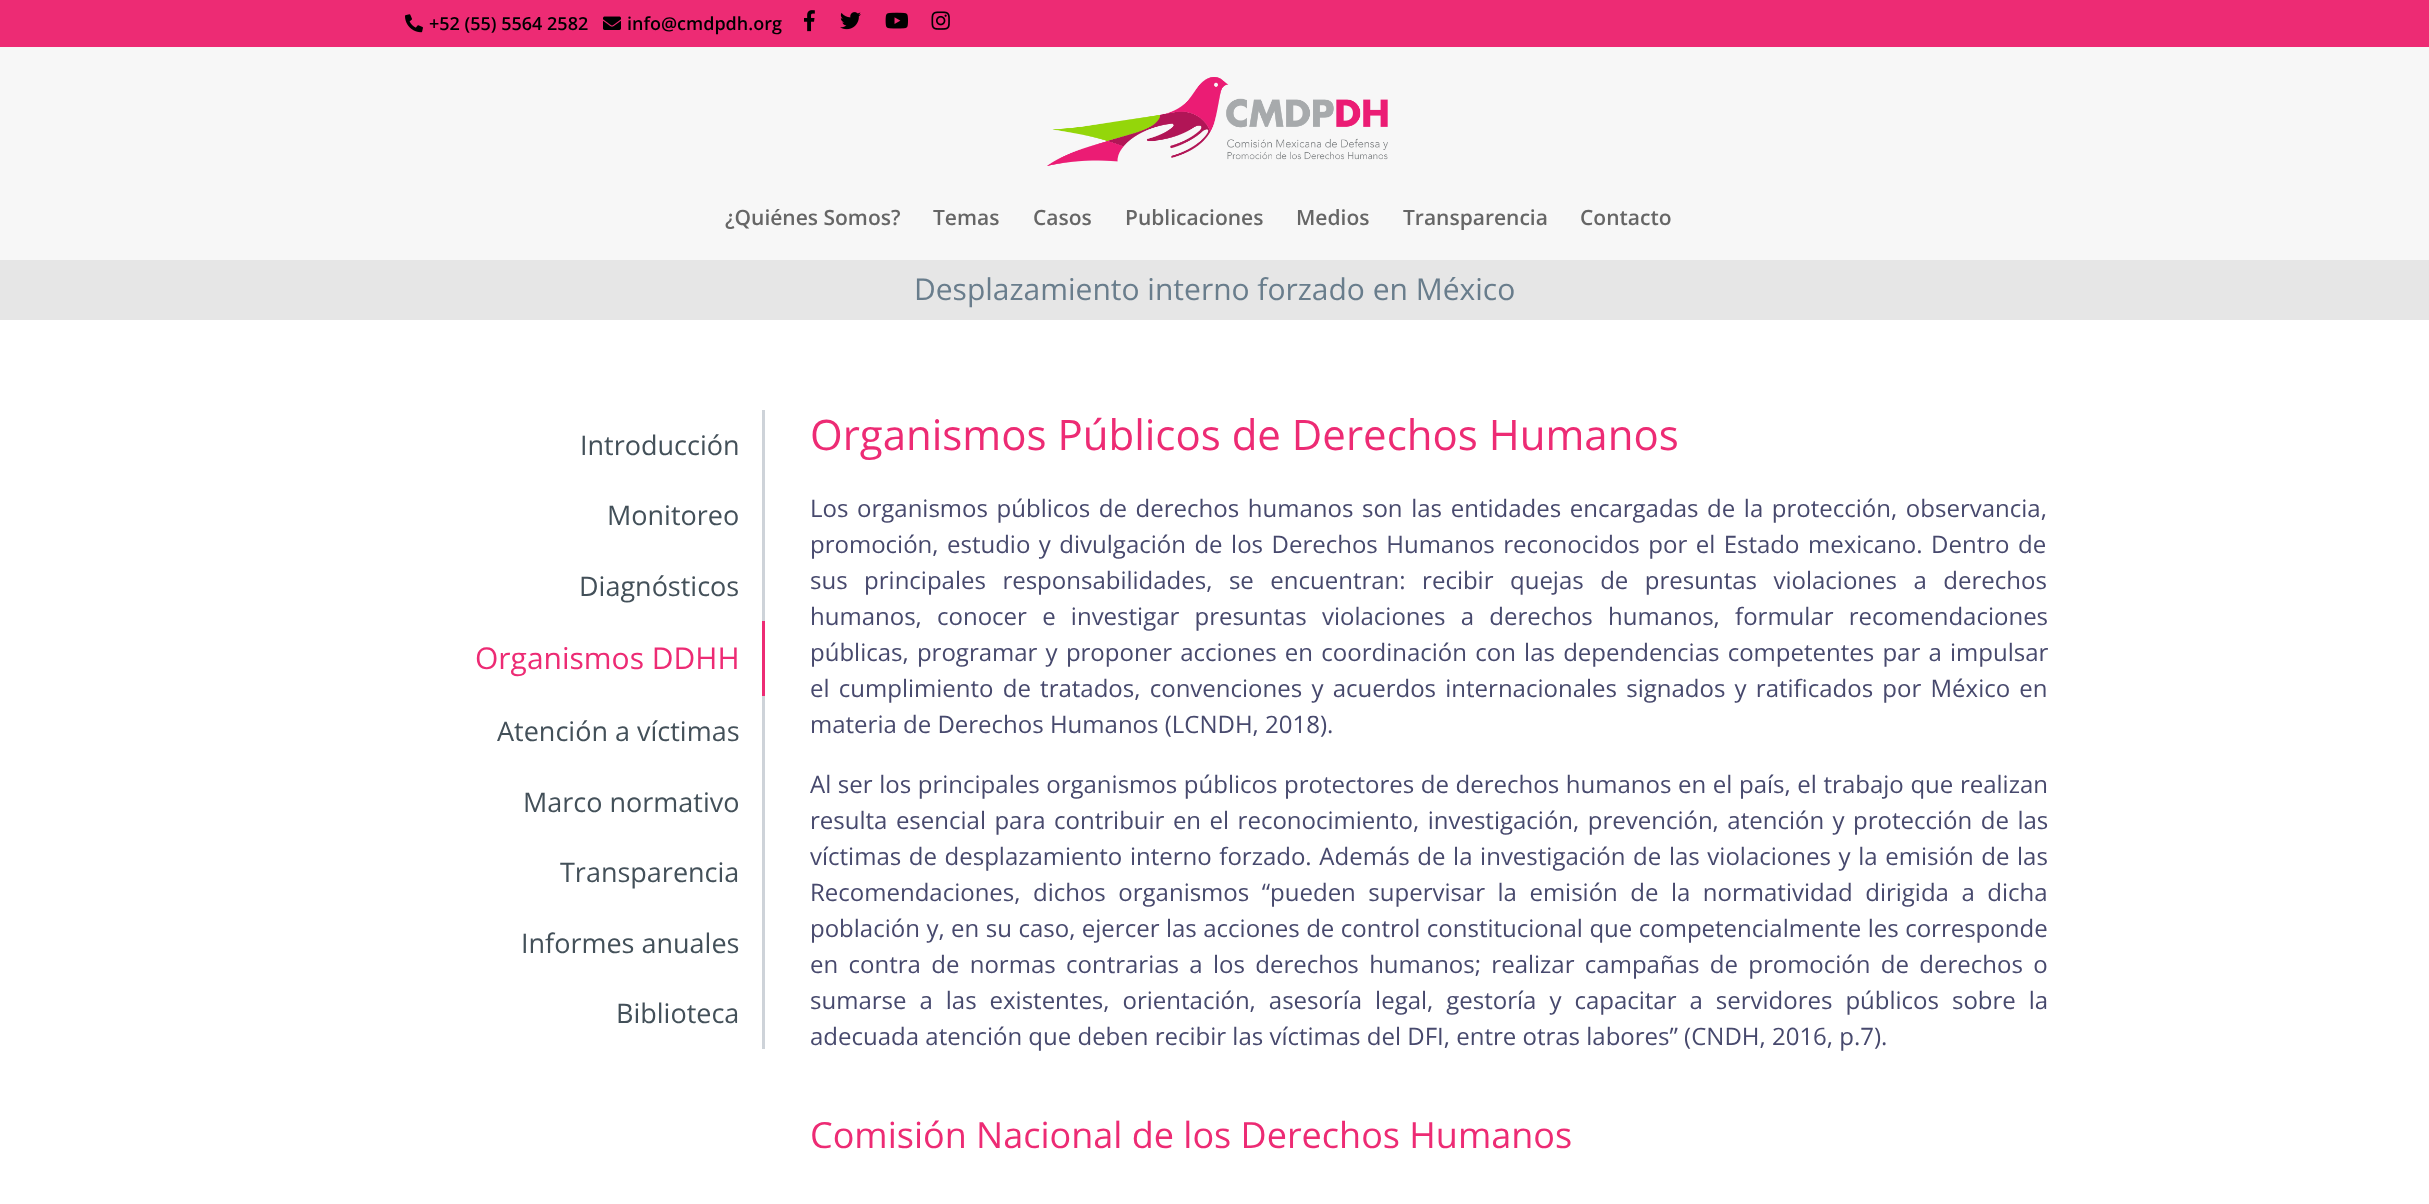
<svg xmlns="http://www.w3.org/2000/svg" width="2429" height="1204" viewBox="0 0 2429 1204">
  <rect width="100%" height="100%" fill="#ffffff"/>
  <rect x="0" y="47" width="2429" height="213" fill="#f7f7f7"/>
  <rect x="0" y="0" width="2429" height="47" fill="#ed2b74"/>
  <image x="405" y="14" width="18" height="19" href="img1.png"/>
  <text x="429" y="30" font-family="Open Sans" font-size="18" font-weight="600" fill="#000000">+52 (55) 5564 2582</text>
  <image x="603" y="16" width="18" height="14" href="img2.png"/>
  <text x="627" y="30" font-family="Open Sans" font-size="18" font-weight="600" fill="#000000">info@cmdpdh.org</text>
  <image x="804" y="10" width="11" height="22" href="img3.png"/>
  <image x="840" y="12" width="21" height="18" href="img4.png"/>
  <image x="885" y="12" width="23" height="17" href="img5.png"/>
  <image x="931" y="11" width="19" height="19" href="img6.png"/>
  <image x="1047" y="77" width="341" height="89" href="img7.png"/>
  <text x="725" y="225" font-family="Open Sans" font-size="21" font-weight="600" fill="#666666">¿Quiénes Somos?</text>
  <text x="933" y="225" font-family="Open Sans" font-size="21" font-weight="600" fill="#666666">Temas</text>
  <text x="1033" y="225" font-family="Open Sans" font-size="21" font-weight="600" fill="#666666">Casos</text>
  <text x="1125" y="225" font-family="Open Sans" font-size="21" font-weight="600" fill="#666666">Publicaciones</text>
  <text x="1296" y="225" font-family="Open Sans" font-size="21" font-weight="600" fill="#666666">Medios</text>
  <text x="1403" y="225" font-family="Open Sans" font-size="21" font-weight="600" fill="#666666">Transparencia</text>
  <text x="1580" y="225" font-family="Open Sans" font-size="21" font-weight="600" fill="#666666">Contacto</text>
  <rect x="0" y="260" width="2429" height="60" fill="#e6e6e6"/>
  <text x="914" y="300" font-family="Open Sans" font-size="30" fill="#697d8c">Desplazamiento interno forzado en México</text>
  <rect x="762" y="410" width="3" height="211" fill="#ced3d9"/>
  <text x="580" y="455" font-family="Open Sans" font-size="27" fill="#435059">Introducción</text>
  <text x="607" y="525" font-family="Open Sans" font-size="27" fill="#435059">Monitoreo</text>
  <text x="579" y="596" font-family="Open Sans" font-size="27" fill="#435059">Diagnósticos</text>
  <rect x="762" y="621" width="3" height="75" fill="#ed2b74"/>
  <text x="475" y="669" font-family="Open Sans" font-size="30" fill="#ed2b74">Organismos DDHH</text>
  <rect x="762" y="696" width="3" height="353" fill="#ced3d9"/>
  <text x="497" y="741" font-family="Open Sans" font-size="27" fill="#435059">Atención a víctimas</text>
  <text x="523" y="812" font-family="Open Sans" font-size="27" fill="#435059">Marco normativo</text>
  <text x="560" y="882" font-family="Open Sans" font-size="27" fill="#435059">Transparencia</text>
  <text x="521" y="953" font-family="Open Sans" font-size="27" fill="#435059">Informes anuales</text>
  <text x="616" y="1023" font-family="Open Sans" font-size="27" fill="#435059">Biblioteca</text>
  <text x="810" y="450" font-family="Open Sans" font-size="42" fill="#ed2b74">Organismos Públicos de Derechos Humanos</text>
  <text x="810" y="517" word-spacing="2.4" font-family="Open Sans" font-size="24" fill="#47496d">Los organismos públicos de derechos humanos son las entidades encargadas de la protección, observancia,</text>
  <text x="810" y="553" word-spacing="2.25" font-family="Open Sans" font-size="24" fill="#47496d">promoción, estudio y divulgación de los Derechos Humanos reconocidos por el Estado mexicano. Dentro de</text>
  <text x="810" y="589" word-spacing="10.25" font-family="Open Sans" font-size="24" fill="#47496d">sus principales responsabilidades, se encuentran: recibir quejas de presuntas violaciones a derechos</text>
  <text x="810" y="625" word-spacing="9" font-family="Open Sans" font-size="24" fill="#47496d">humanos, conocer e investigar presuntas violaciones a derechos humanos, formular recomendaciones</text>
  <text x="810" y="661" word-spacing="2" font-family="Open Sans" font-size="24" fill="#47496d">públicas, programar y proponer acciones en coordinación con las dependencias competentes par a impulsar</text>
  <text x="810" y="697" word-spacing="3" font-family="Open Sans" font-size="24" fill="#47496d">el cumplimiento de tratados, convenciones y acuerdos internacionales signados y ratificados por México en</text>
  <text x="810" y="733" font-family="Open Sans" font-size="24" fill="#47496d">materia de Derechos Humanos (LCNDH, 2018).</text>
  <text x="810" y="793" word-spacing="0.4" font-family="Open Sans" font-size="24" fill="#47496d">Al ser los principales organismos públicos protectores de derechos humanos en el país, el trabajo que realizan</text>
  <text x="810" y="829" word-spacing="2.25" font-family="Open Sans" font-size="24" fill="#47496d">resulta esencial para contribuir en el reconocimiento, investigación, prevención, atención y protección de las</text>
  <text x="810" y="865" word-spacing="1.4" font-family="Open Sans" font-size="24" fill="#47496d">víctimas de desplazamiento interno forzado. Además de la investigación de las violaciones y la emisión de las</text>
  <text x="810" y="901" word-spacing="6.25" font-family="Open Sans" font-size="24" fill="#47496d">Recomendaciones, dichos organismos “pueden supervisar la emisión de la normatividad dirigida a dicha</text>
  <text x="810" y="937" word-spacing="0.25" font-family="Open Sans" font-size="24" fill="#47496d">población y, en su caso, ejercer las acciones de control constitucional que competencialmente les corresponde</text>
  <text x="810" y="973" word-spacing="4.1" font-family="Open Sans" font-size="24" fill="#47496d">en contra de normas contrarias a los derechos humanos; realizar campañas de promoción de derechos o</text>
  <text x="810" y="1009" word-spacing="6.75" font-family="Open Sans" font-size="24" fill="#47496d">sumarse a las existentes, orientación, asesoría legal, gestoría y capacitar a servidores públicos sobre la</text>
  <text x="810" y="1045" font-family="Open Sans" font-size="24" fill="#47496d">adecuada atención que deben recibir las víctimas del DFI, entre otras labores” (CNDH, 2016, p.7).</text>
  <text x="810" y="1148" font-family="Open Sans" font-size="36" fill="#ed2b74">Comisión Nacional de los Derechos Humanos</text>
</svg>
